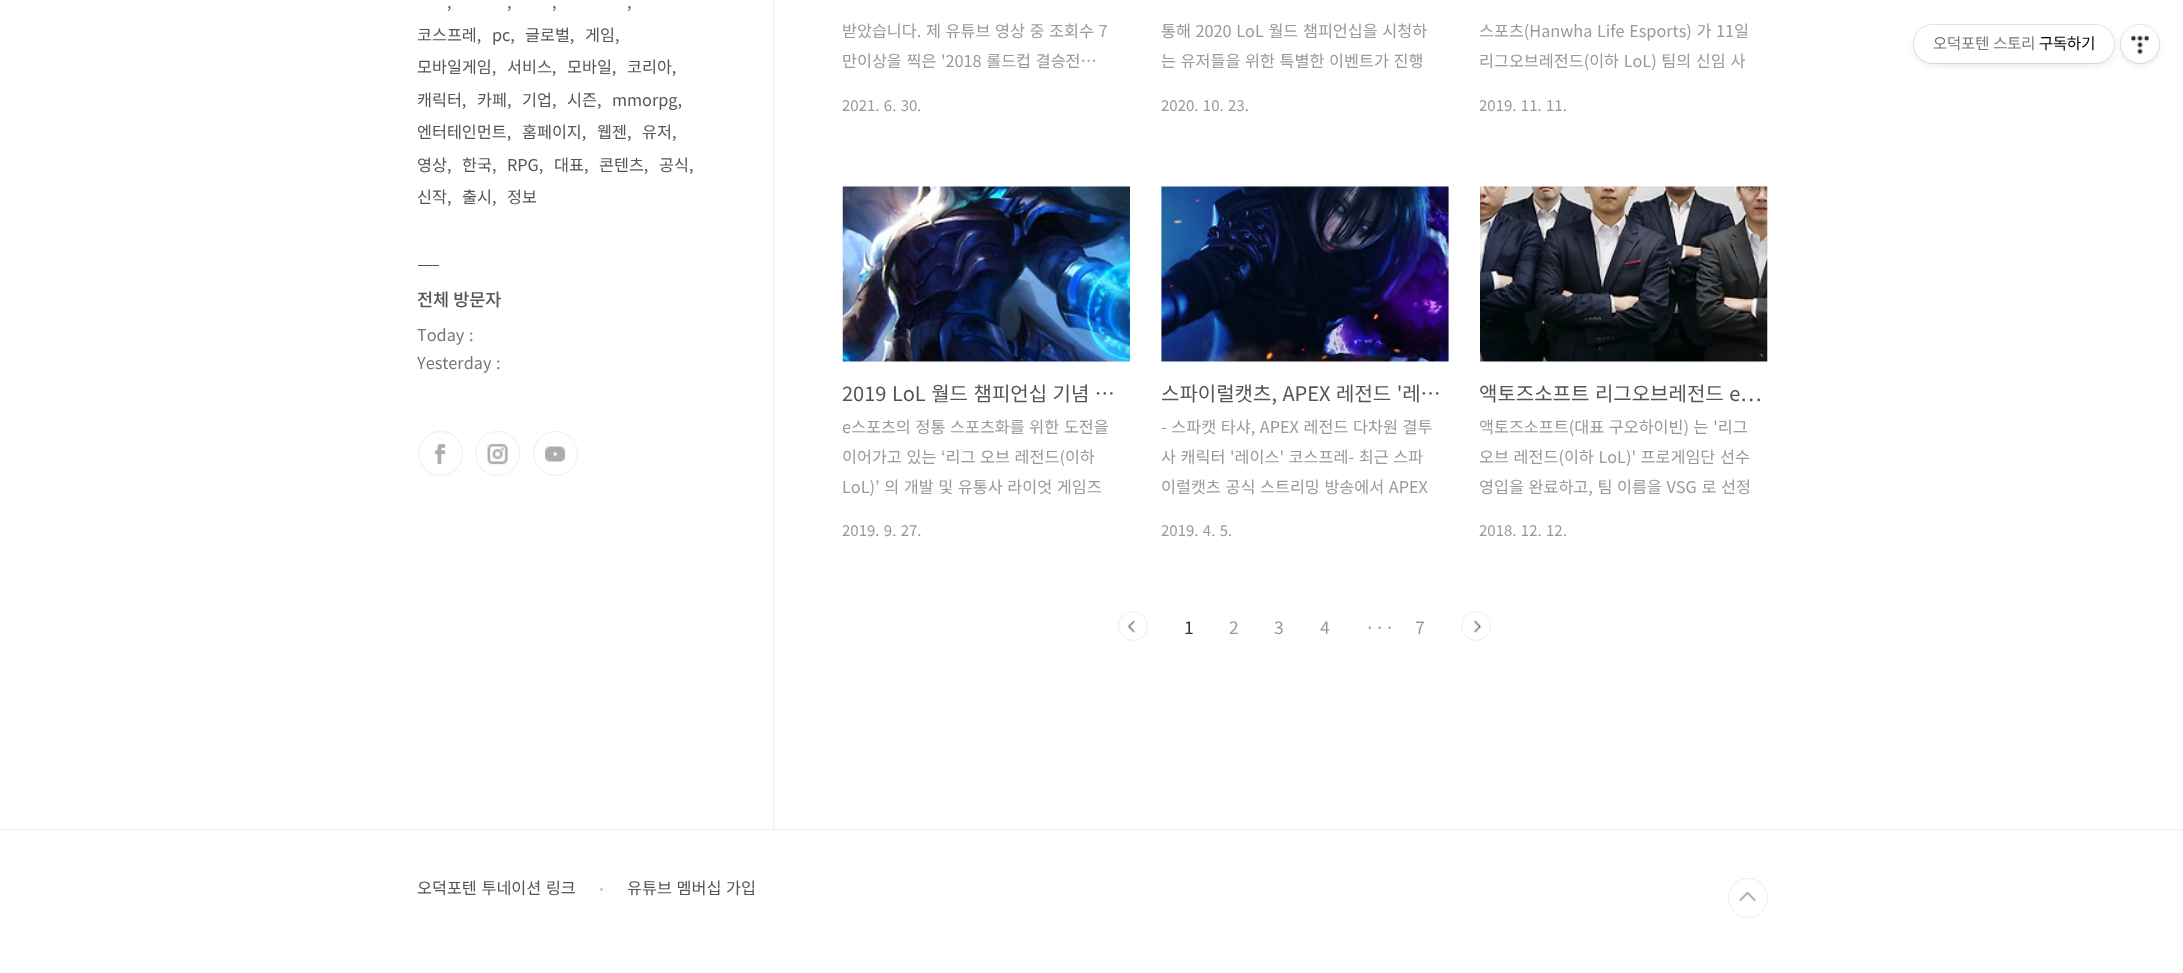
<svg xmlns="http://www.w3.org/2000/svg" width="2183" height="973" viewBox="0 0 2183 973">
  <style>*{font-kerning:none!important;font-variant-ligatures:none!important}</style>
  <defs>
    <clipPath id="clip1"><rect x="843" y="411" width="272" height="90"/></clipPath>
    <filter id="blur1" x="-50%" y="-200%" width="200%" height="500%"><feGaussianBlur stdDeviation="3"/></filter>
  </defs>
  <rect width="100%" height="100%" fill="#ffffff"/>
  <text x="447" y="8" font-family="Noto Sans KR" font-size="16.25" fill="#555555">,</text>
  <text x="507" y="8" font-family="Noto Sans KR" font-size="16.25" fill="#555555">,</text>
  <text x="552" y="8" font-family="Noto Sans KR" font-size="16.25" fill="#555555">,</text>
  <text x="627" y="8" font-family="Noto Sans KR" font-size="16.25" fill="#555555">,</text>
  <text x="417" y="41" font-family="Noto Sans KR" font-size="16.25" fill="#555555">코스프레,</text>
  <text x="492" y="41" font-family="Noto Sans KR" font-size="16.25" fill="#555555">pc,</text>
  <text x="525" y="41" font-family="Noto Sans KR" font-size="16.25" fill="#555555">글로벌,</text>
  <text x="585" y="41" font-family="Noto Sans KR" font-size="16.25" fill="#555555">게임,</text>
  <text x="417" y="73" font-family="Noto Sans KR" font-size="16.25" fill="#555555">모바일게임,</text>
  <text x="507" y="73" font-family="Noto Sans KR" font-size="16.25" fill="#555555">서비스,</text>
  <text x="567" y="73" font-family="Noto Sans KR" font-size="16.25" fill="#555555">모바일,</text>
  <text x="627" y="73" font-family="Noto Sans KR" font-size="16.25" fill="#555555">코리아,</text>
  <text x="417" y="106" font-family="Noto Sans KR" font-size="16.25" fill="#555555">캐릭터,</text>
  <text x="477" y="106" font-family="Noto Sans KR" font-size="16.25" fill="#555555">카페,</text>
  <text x="522" y="106" font-family="Noto Sans KR" font-size="16.25" fill="#555555">기업,</text>
  <text x="567" y="106" font-family="Noto Sans KR" font-size="16.25" fill="#555555">시즌,</text>
  <text x="612" y="106" font-family="Noto Sans KR" font-size="16.25" fill="#555555">mmorpg,</text>
  <text x="417" y="138" font-family="Noto Sans KR" font-size="16.25" fill="#555555">엔터테인먼트,</text>
  <text x="522" y="138" font-family="Noto Sans KR" font-size="16.25" fill="#555555">홈페이지,</text>
  <text x="597" y="138" font-family="Noto Sans KR" font-size="16.25" fill="#555555">웹젠,</text>
  <text x="642" y="138" font-family="Noto Sans KR" font-size="16.25" fill="#555555">유저,</text>
  <text x="417" y="171" font-family="Noto Sans KR" font-size="16.25" fill="#555555">영상,</text>
  <text x="462" y="171" font-family="Noto Sans KR" font-size="16.25" fill="#555555">한국,</text>
  <text x="507" y="171" font-family="Noto Sans KR" font-size="16.25" fill="#555555">RPG,</text>
  <text x="554" y="171" font-family="Noto Sans KR" font-size="16.25" fill="#555555">대표,</text>
  <text x="599" y="171" font-family="Noto Sans KR" font-size="16.25" fill="#555555">콘텐츠,</text>
  <text x="659" y="171" font-family="Noto Sans KR" font-size="16.25" fill="#555555">공식,</text>
  <text x="417" y="203" font-family="Noto Sans KR" font-size="16.25" fill="#555555">신작,</text>
  <text x="462" y="203" font-family="Noto Sans KR" font-size="16.25" fill="#555555">출시,</text>
  <text x="507" y="203" font-family="Noto Sans KR" font-size="16.25" fill="#555555">정보</text>
  <rect x="418" y="265" width="21" height="1" fill="#555555"/>
  <text x="417" y="306" font-family="Noto Sans KR" font-size="17.5" font-weight="500" fill="#555555">전체 방문자</text>
  <text x="417" y="341" word-spacing="1" font-family="Noto Sans KR" font-size="16.25" fill="#777777">Today :</text>
  <text x="417" y="369" word-spacing="1" font-family="Noto Sans KR" font-size="16.25" fill="#777777">Yesterday :</text>
  <image x="434" y="443" width="12" height="22" href="img1.png"/>
  <circle cx="440.5" cy="453.5" r="22" fill="none" stroke="#eeeeee"/>
  <image x="487" y="443" width="21" height="22" href="img2.png"/>
  <circle cx="497.5" cy="453.5" r="22" fill="none" stroke="#eeeeee"/>
  <image x="544" y="446" width="22" height="16" href="img3.png"/>
  <circle cx="555.5" cy="453.5" r="22" fill="none" stroke="#eeeeee"/>
  <rect x="773" y="0" width="1" height="829" fill="#eeeeee"/>
  <text x="842" y="37" word-spacing="1" font-family="Noto Sans KR" font-size="16.25" fill="#999999">받았습니다. 제 유튜브 영상 중 조회수 7</text>
  <text x="842" y="67" word-spacing="1" font-family="Noto Sans KR" font-size="16.25" fill="#999999">만이상을 찍은 '2018 롤드컵 결승전…</text>
  <text x="842" y="111" word-spacing="1" font-family="Noto Sans KR" font-size="15" fill="#999999">2021. 6. 30.</text>
  <text x="1161" y="37" word-spacing="1" font-family="Noto Sans KR" font-size="16.25" fill="#999999">통해 2020 LoL 월드 챔피언십을 시청하</text>
  <text x="1161" y="67" word-spacing="1" font-family="Noto Sans KR" font-size="16.25" fill="#999999">는 유저들을 위한 특별한 이벤트가 진행</text>
  <text x="1161" y="111" word-spacing="1" font-family="Noto Sans KR" font-size="15" fill="#999999">2020. 10. 23.</text>
  <text x="1479" y="37" word-spacing="1" font-family="Noto Sans KR" font-size="16.25" fill="#999999">스포츠(Hanwha Life Esports) 가 11일</text>
  <text x="1479" y="67" word-spacing="1" font-family="Noto Sans KR" font-size="16.25" fill="#999999">리그오브레전드(이하 LoL) 팀의 신임 사</text>
  <text x="1479" y="111" word-spacing="1" font-family="Noto Sans KR" font-size="15" fill="#999999">2019. 11. 11.</text>
  <rect x="843" y="186" width="287" height="1" fill="#f8f8f8"/>
  <image x="842" y="186" width="288" height="176" href="img4.png"/>
  <text x="842" y="401" word-spacing="1" font-family="Noto Sans KR" font-size="20" fill="#555555">2019 LoL 월드 챔피언십 기념 …</text>
  <g clip-path="url(#clip1)">
    <text x="842" y="433" word-spacing="1" font-family="Noto Sans KR" font-size="16.25" fill="#999999">e스포츠의 정통 스포츠화를 위한 도전을</text>
  </g>
  <text x="842" y="463" word-spacing="1" font-family="Noto Sans KR" font-size="16.25" fill="#999999">이어가고 있는 ‘리그 오브 레전드(이하</text>
  <text x="842" y="493" word-spacing="1" font-family="Noto Sans KR" font-size="16.25" fill="#999999">LoL)’ 의 개발 및 유통사 라이엇 게임즈</text>
  <text x="842" y="536" word-spacing="1" font-family="Noto Sans KR" font-size="15" fill="#999999">2019. 9. 27.</text>
  <rect x="1161" y="186" width="288" height="175" fill="#f8f8f8"/>
  <image x="1161" y="186" width="288" height="176" href="img5.png"/>
  <text x="1161" y="401" word-spacing="1" font-family="Noto Sans KR" font-size="20" fill="#555555">스파이럴캣츠, APEX 레전드 '레…</text>
  <text x="1161" y="433" word-spacing="1" font-family="Noto Sans KR" font-size="16.25" fill="#999999">- 스파캣 타샤, APEX 레전드 다차원 결투</text>
  <text x="1161" y="463" word-spacing="1" font-family="Noto Sans KR" font-size="16.25" fill="#999999">사 캐릭터 '레이스' 코스프레- 최근 스파</text>
  <text x="1161" y="493" word-spacing="1" font-family="Noto Sans KR" font-size="16.25" fill="#999999">이럴캣츠 공식 스트리밍 방송에서 APEX</text>
  <text x="1161" y="536" word-spacing="1" font-family="Noto Sans KR" font-size="15" fill="#999999">2019. 4. 5.</text>
  <rect x="1480" y="186" width="288" height="175" fill="#f8f8f8"/>
  <image x="1480" y="186" width="288" height="176" href="img6.png"/>
  <text x="1479" y="401" word-spacing="1" font-family="Noto Sans KR" font-size="20" fill="#555555">액토즈소프트 리그오브레전드 e…</text>
  <text x="1479" y="433" word-spacing="1" font-family="Noto Sans KR" font-size="16.25" fill="#999999">액토즈소프트(대표 구오하이빈) 는 '리그</text>
  <text x="1479" y="463" word-spacing="1" font-family="Noto Sans KR" font-size="16.25" fill="#999999">오브 레전드(이하 LoL)' 프로게임단 선수</text>
  <text x="1479" y="493" word-spacing="1" font-family="Noto Sans KR" font-size="16.25" fill="#999999">영입을 완료하고, 팀 이름을 VSG 로 선정</text>
  <text x="1479" y="536" word-spacing="1" font-family="Noto Sans KR" font-size="15" fill="#999999">2018. 12. 12.</text>
  <image x="1127" y="620" width="9" height="13" href="img7.png"/>
  <circle cx="1133" cy="626" r="14.5" fill="none" stroke="#eeeeee"/>
  <text x="1184" y="634" font-family="Noto Sans KR" font-size="17.5" fill="#333333">1</text>
  <text x="1229" y="634" font-family="Noto Sans KR" font-size="17.5" fill="#999999">2</text>
  <text x="1274" y="634" font-family="Noto Sans KR" font-size="17.5" fill="#999999">3</text>
  <text x="1320" y="634" font-family="Noto Sans KR" font-size="17.5" fill="#999999">4</text>
  <text x="1365" y="634" font-family="Noto Sans KR" font-size="17.5" fill="#999999">···</text>
  <text x="1415" y="634" font-family="Noto Sans KR" font-size="17.5" fill="#999999">7</text>
  <image x="1473" y="620" width="9" height="13" href="img8.png"/>
  <circle cx="1476" cy="626" r="14.5" fill="none" stroke="#eeeeee"/>
  <rect x="0" y="829" width="2183" height="1" fill="#eeeeee"/>
  <text x="417" y="894" word-spacing="1" font-family="Noto Sans KR" font-size="16.25" fill="#555555">오덕포텐 투네이션 링크</text>
  <rect x="600" y="888" width="3" height="3" fill="#d2d2d2"/>
  <text x="627" y="894" word-spacing="1" font-family="Noto Sans KR" font-size="16.25" fill="#555555">유튜브 멤버십 가입</text>
  <image x="1738" y="891" width="19" height="11" href="img9.png"/>
  <circle cx="1748" cy="898" r="19.5" fill="none" stroke="#eeeeee"/>
  <rect x="2121" y="28" width="38" height="37" rx="18.5" fill="#000000" fill-opacity="0.1" filter="url(#blur1)"/>
  <circle cx="2140" cy="44" r="19.5" fill="none" stroke="#000000" stroke-opacity="0.1"/>
  <circle cx="2140" cy="44" r="19" fill="#ffffff"/>
  <rect x="1914" y="28" width="200" height="37" rx="18.5" fill="#000000" fill-opacity="0.1" filter="url(#blur1)"/>
  <rect x="1913.5" y="24.5" width="201" height="39" rx="19.5" fill="none" stroke="#000000" stroke-opacity="0.1"/>
  <rect x="1914" y="25" width="200" height="38" rx="19" fill="#ffffff"/>
  <text x="1933" y="49" font-family="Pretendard" font-size="16.25" fill="#777777">오덕포텐 스토리</text>
  <text x="2039" y="49" font-family="Pretendard" font-size="16.25" fill="#000000">구독하기</text>
  <image x="2131" y="35" width="18" height="19" href="img10.png"/>
</svg>
